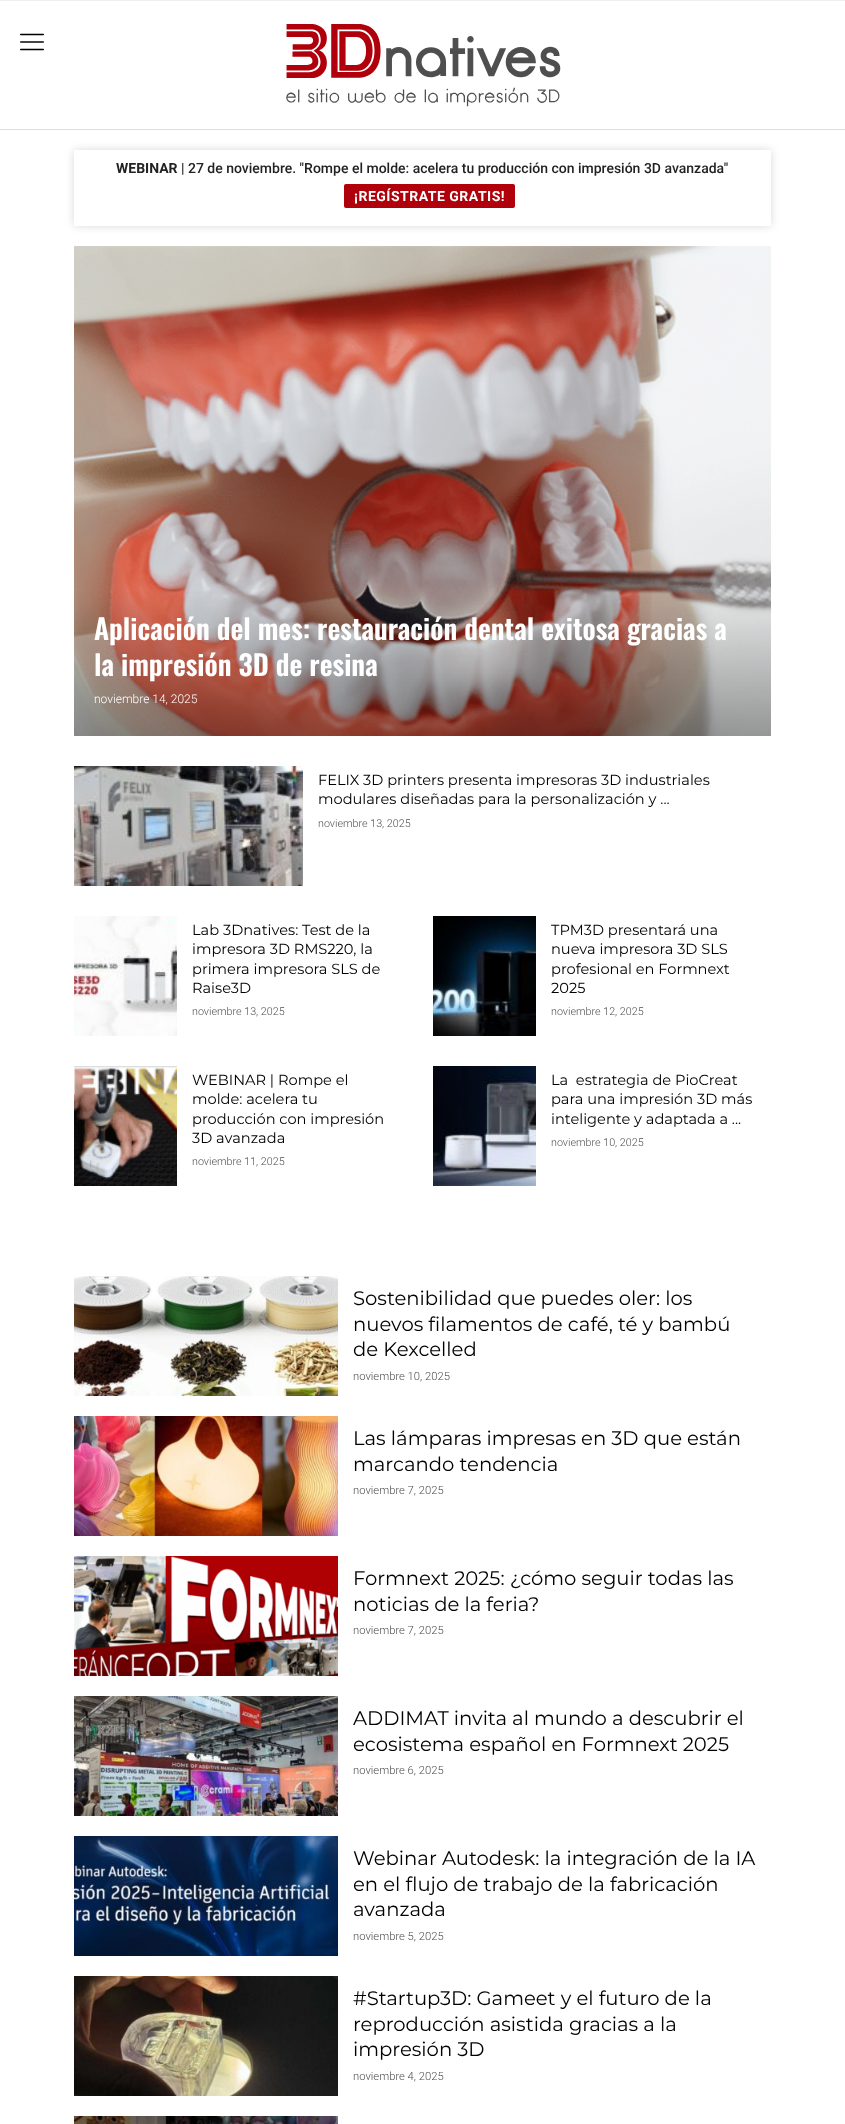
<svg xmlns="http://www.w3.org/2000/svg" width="845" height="2124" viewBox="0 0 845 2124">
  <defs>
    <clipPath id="clip1"><path d="M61 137H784V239H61ZM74 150H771V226H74Z" clip-rule="evenodd"/></clipPath>
    <filter id="blur1" x="-50%" y="-200%" width="200%" height="500%"><feGaussianBlur stdDeviation="4"/></filter>
  </defs>
  <rect width="100%" height="100%" fill="#ffffff"/>
  <rect x="0" y="0" width="845" height="1" fill="#eeeeee"/>
  <rect x="0" y="129" width="845" height="1" fill="#dddddd"/>
  <image x="286" y="24" width="275" height="83" href="img1.png"/>
  <image x="20" y="33" width="24" height="18" href="img2.png"/>
  <g clip-path="url(#clip1)">
    <rect x="74" y="150" width="697" height="76" fill="#000000" fill-opacity="0.15" filter="url(#blur1)"/>
  </g>
  <text x="116" y="173" font-family="Roboto" font-size="14" font-weight="bold" fill="#222222">WEBINAR</text>
  <text x="181" y="173" font-family="Roboto" font-size="14" font-weight="500" fill="#222222">| 27 de noviembre. "Rompe el molde: acelera tu producción con impresión 3D avanzada"</text>
  <rect x="344" y="184" width="171" height="24" rx="2" fill="#af000b"/>
  <text x="354" y="201" font-family="Roboto" font-size="14" font-weight="bold" letter-spacing="0.5" fill="#ffffff">¡REGÍSTRATE GRATIS!</text>
  <image x="74" y="246" width="697" height="490" href="img3.png"/>
  <text x="94" y="640" font-family="Oswald" font-size="28" font-weight="600" fill="#ffffff">Aplicación del mes: restauración dental exitosa gracias a</text>
  <text x="94" y="676" font-family="Oswald" font-size="28" font-weight="600" fill="#ffffff">la impresión 3D de resina</text>
  <text x="94" y="703" font-family="Roboto" font-size="12" font-weight="300" fill="#ffffff">noviembre 14, 2025</text>
  <image x="74" y="766" width="229" height="120" href="img4.png"/>
  <text x="318" y="785" font-family="Montserrat" font-size="14.6" fill="#000000">FELIX 3D printers presenta impresoras 3D industriales</text>
  <text x="318" y="804" font-family="Montserrat" font-size="14.6" fill="#000000">modulares diseñadas para la personalización y ...</text>
  <text x="318" y="827" font-family="Roboto" font-size="10.75" font-weight="300" fill="#4f4f4f">noviembre 13, 2025</text>
  <image x="74" y="916" width="103" height="120" href="img5.png"/>
  <text x="192" y="935" font-family="Montserrat" font-size="14.6" fill="#000000">Lab 3Dnatives: Test de la</text>
  <text x="192" y="954" font-family="Montserrat" font-size="14.6" fill="#000000">impresora 3D RMS220, la</text>
  <text x="192" y="974" font-family="Montserrat" font-size="14.6" fill="#000000">primera impresora SLS de</text>
  <text x="192" y="993" font-family="Montserrat" font-size="14.6" fill="#000000">Raise3D</text>
  <text x="192" y="1015" font-family="Roboto" font-size="10.75" font-weight="300" fill="#4f4f4f">noviembre 13, 2025</text>
  <image x="433" y="916" width="103" height="120" href="img6.png"/>
  <text x="551" y="935" font-family="Montserrat" font-size="14.6" fill="#000000">TPM3D presentará una</text>
  <text x="551" y="954" font-family="Montserrat" font-size="14.6" fill="#000000">nueva impresora 3D SLS</text>
  <text x="551" y="974" font-family="Montserrat" font-size="14.6" fill="#000000">profesional en Formnext</text>
  <text x="551" y="993" font-family="Montserrat" font-size="14.6" fill="#000000">2025</text>
  <text x="551" y="1015" font-family="Roboto" font-size="10.75" font-weight="300" fill="#4f4f4f">noviembre 12, 2025</text>
  <image x="74" y="1066" width="103" height="120" href="img7.png"/>
  <text x="192" y="1085" font-family="Montserrat" font-size="14.6" fill="#000000">WEBINAR | Rompe el</text>
  <text x="192" y="1104" font-family="Montserrat" font-size="14.6" fill="#000000">molde: acelera tu</text>
  <text x="192" y="1124" font-family="Montserrat" font-size="14.6" fill="#000000">producción con impresión</text>
  <text x="192" y="1143" font-family="Montserrat" font-size="14.6" fill="#000000">3D avanzada</text>
  <text x="192" y="1165" font-family="Roboto" font-size="10.75" font-weight="300" fill="#4f4f4f">noviembre 11, 2025</text>
  <image x="433" y="1066" width="103" height="120" href="img8.png"/>
  <text x="551" y="1085" font-family="Montserrat" font-size="14.6" fill="#000000" xml:space="preserve">La  estrategia de PioCreat</text>
  <text x="551" y="1104" font-family="Montserrat" font-size="14.6" fill="#000000">para una impresión 3D más</text>
  <text x="551" y="1124" font-family="Montserrat" font-size="14.6" fill="#000000">inteligente y adaptada a ...</text>
  <text x="551" y="1146" font-family="Roboto" font-size="10.75" font-weight="300" fill="#4f4f4f">noviembre 10, 2025</text>
  <image x="74" y="1276" width="264" height="120" href="img9.png"/>
  <text x="353" y="1305" font-family="Montserrat" font-size="19.6" fill="#000000">Sostenibilidad que puedes oler: los</text>
  <text x="353" y="1331" font-family="Montserrat" font-size="19.6" fill="#000000">nuevos filamentos de café, té y bambú</text>
  <text x="353" y="1356" font-family="Montserrat" font-size="19.6" fill="#000000">de Kexcelled</text>
  <text x="353" y="1380" font-family="Roboto" font-size="11.25" font-weight="300" fill="#4f4f4f">noviembre 10, 2025</text>
  <image x="74" y="1416" width="264" height="120" href="img10.png"/>
  <text x="353" y="1445" font-family="Montserrat" font-size="19.6" fill="#000000">Las lámparas impresas en 3D que están</text>
  <text x="353" y="1471" font-family="Montserrat" font-size="19.6" fill="#000000">marcando tendencia</text>
  <text x="353" y="1494" font-family="Roboto" font-size="11.25" font-weight="300" fill="#4f4f4f">noviembre 7, 2025</text>
  <image x="74" y="1556" width="264" height="120" href="img11.png"/>
  <text x="353" y="1585" font-family="Montserrat" font-size="19.6" fill="#000000">Formnext 2025: ¿cómo seguir todas las</text>
  <text x="353" y="1611" font-family="Montserrat" font-size="19.6" fill="#000000">noticias de la feria?</text>
  <text x="353" y="1634" font-family="Roboto" font-size="11.25" font-weight="300" fill="#4f4f4f">noviembre 7, 2025</text>
  <image x="74" y="1696" width="264" height="120" href="img12.png"/>
  <text x="353" y="1725" font-family="Montserrat" font-size="19.6" fill="#000000">ADDIMAT invita al mundo a descubrir el</text>
  <text x="353" y="1751" font-family="Montserrat" font-size="19.6" fill="#000000">ecosistema español en Formnext 2025</text>
  <text x="353" y="1774" font-family="Roboto" font-size="11.25" font-weight="300" fill="#4f4f4f">noviembre 6, 2025</text>
  <image x="74" y="1836" width="264" height="120" href="img13.png"/>
  <text x="353" y="1865" font-family="Montserrat" font-size="19.6" fill="#000000">Webinar Autodesk: la integración de la IA</text>
  <text x="353" y="1891" font-family="Montserrat" font-size="19.6" fill="#000000">en el flujo de trabajo de la fabricación</text>
  <text x="353" y="1916" font-family="Montserrat" font-size="19.6" fill="#000000">avanzada</text>
  <text x="353" y="1940" font-family="Roboto" font-size="11.25" font-weight="300" fill="#4f4f4f">noviembre 5, 2025</text>
  <image x="74" y="1976" width="264" height="120" href="img14.png"/>
  <text x="353" y="2005" font-family="Montserrat" font-size="19.6" fill="#000000">#Startup3D: Gameet y el futuro de la</text>
  <text x="353" y="2031" font-family="Montserrat" font-size="19.6" fill="#000000">reproducción asistida gracias a la</text>
  <text x="353" y="2056" font-family="Montserrat" font-size="19.6" fill="#000000">impresión 3D</text>
  <text x="353" y="2080" font-family="Roboto" font-size="11.25" font-weight="300" fill="#4f4f4f">noviembre 4, 2025</text>
  <image x="74" y="2116" width="264" height="8" href="img15.png"/>
</svg>
